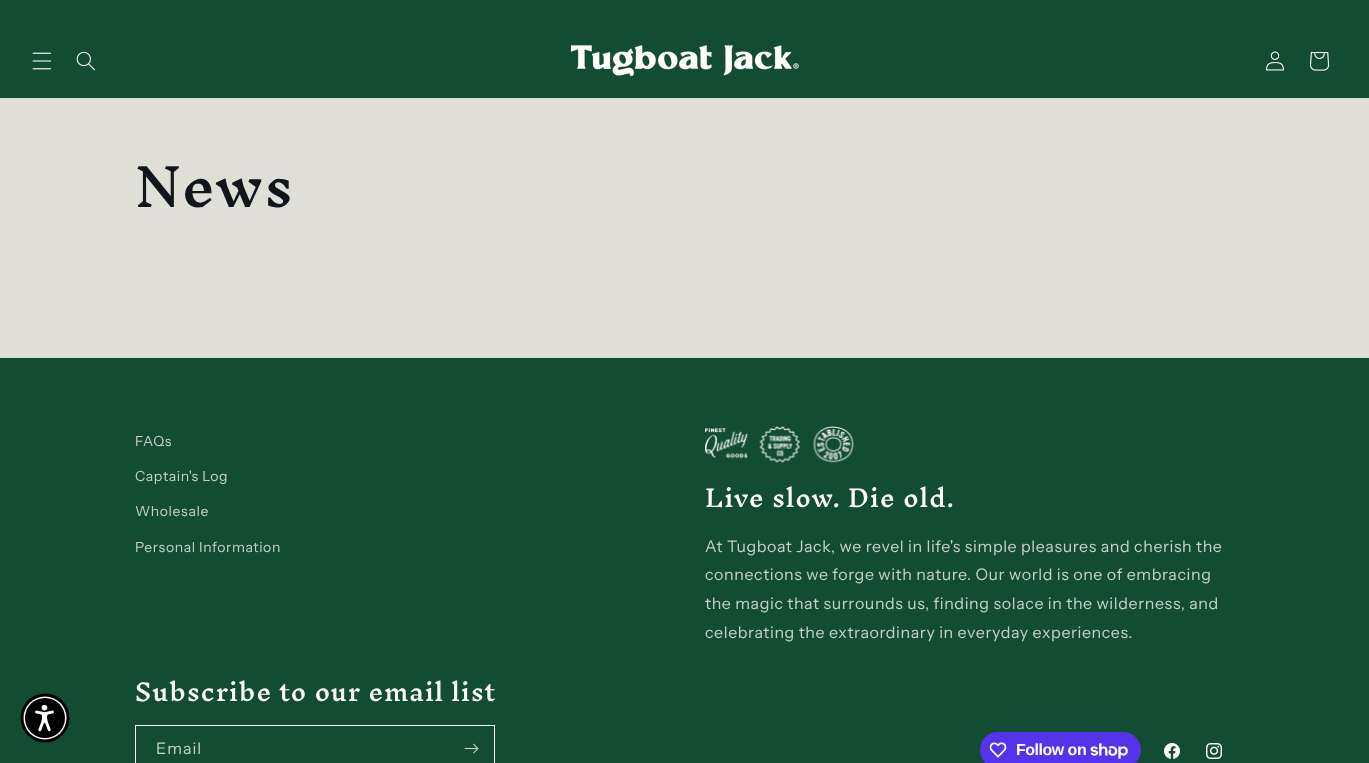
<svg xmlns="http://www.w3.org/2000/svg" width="1369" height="763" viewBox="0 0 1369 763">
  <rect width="100%" height="100%" fill="#dfdfd8"/>
  <rect x="0" y="0" width="1369" height="98" fill="#124c33"/>
  <image x="32" y="52" width="20" height="18" href="img1.png"/>
  <image x="76" y="51" width="19" height="20" href="img2.png"/>
  <image x="570" y="45" width="229" height="31" href="img3.png"/>
  <image x="1266" y="51" width="18" height="20" href="img4.png"/>
  <image x="1310" y="52" width="20" height="19" href="img5.png"/>
  <text x="135" y="207" font-family="Inknut Antiqua" font-size="52" font-weight="500" letter-spacing="0.75" fill="#11151c">News</text>
  <rect x="0" y="358" width="1369" height="405" fill="#124c33"/>
  <circle cx="45" cy="718" r="24.5" fill="#000000"/>
  <circle cx="45" cy="718" r="21.5" fill="#ffffff"/>
  <circle cx="45" cy="718" r="20" fill="#000000"/>
  <image x="35" y="705" width="19" height="27" href="img6.png"/>
  <text x="135" y="446" font-family="Instrument Sans" font-size="14" letter-spacing="0.6" fill="#c4d2cc">FAQs</text>
  <text x="135" y="481" font-family="Instrument Sans" font-size="14" letter-spacing="0.6" fill="#c4d2cc">Captain's Log</text>
  <text x="135" y="516" font-family="Instrument Sans" font-size="14" letter-spacing="0.6" fill="#c4d2cc">Wholesale</text>
  <text x="135" y="552" font-family="Instrument Sans" font-size="14" letter-spacing="0.6" fill="#c4d2cc">Personal Information</text>
  <image x="705" y="426" width="149" height="37" href="img7.png"/>
  <text x="705" y="507" font-family="Inknut Antiqua" font-size="23.4" font-weight="500" letter-spacing="0.75" fill="#ffffff">Live slow. Die old.</text>
  <text x="705" y="552" font-family="Instrument Sans" font-size="16" letter-spacing="0.6" fill="#c4d2cc">At Tugboat Jack, we revel in life's simple pleasures and cherish the</text>
  <text x="705" y="580" font-family="Instrument Sans" font-size="16" letter-spacing="0.6" fill="#c4d2cc">connections we forge with nature. Our world is one of embracing</text>
  <text x="705" y="609" font-family="Instrument Sans" font-size="16" letter-spacing="0.6" fill="#c4d2cc">the magic that surrounds us, finding solace in the wilderness, and</text>
  <text x="705" y="638" font-family="Instrument Sans" font-size="16" letter-spacing="0.6" fill="#c4d2cc">celebrating the extraordinary in everyday experiences.</text>
  <text x="135" y="701" font-family="Inknut Antiqua" font-size="23.4" font-weight="500" letter-spacing="0.75" fill="#ffffff">Subscribe to our email list</text>
  <rect x="135.5" y="725.5" width="359" height="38" fill="none" stroke="#ffffff"/>
  <text x="156" y="754" font-family="Instrument Sans" font-size="16" letter-spacing="1" fill="#c4d2cc">Email</text>
  <image x="464" y="743" width="15" height="11" href="img8.png"/>
  <rect x="980" y="732" width="161" height="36" rx="18" fill="#5433eb"/>
  <image x="989" y="742" width="18" height="16" href="img9.png"/>
  <text x="1016" y="755" font-family="Liberation Sans" font-size="16" font-weight="bold" letter-spacing="-0.5" fill="#ffffff">Follow on</text>
  <image x="1090" y="743" width="38" height="16" href="img10.png"/>
  <image x="1164" y="743" width="16" height="16" href="img11.png"/>
  <image x="1206" y="743" width="16" height="16" href="img12.png"/>
</svg>
